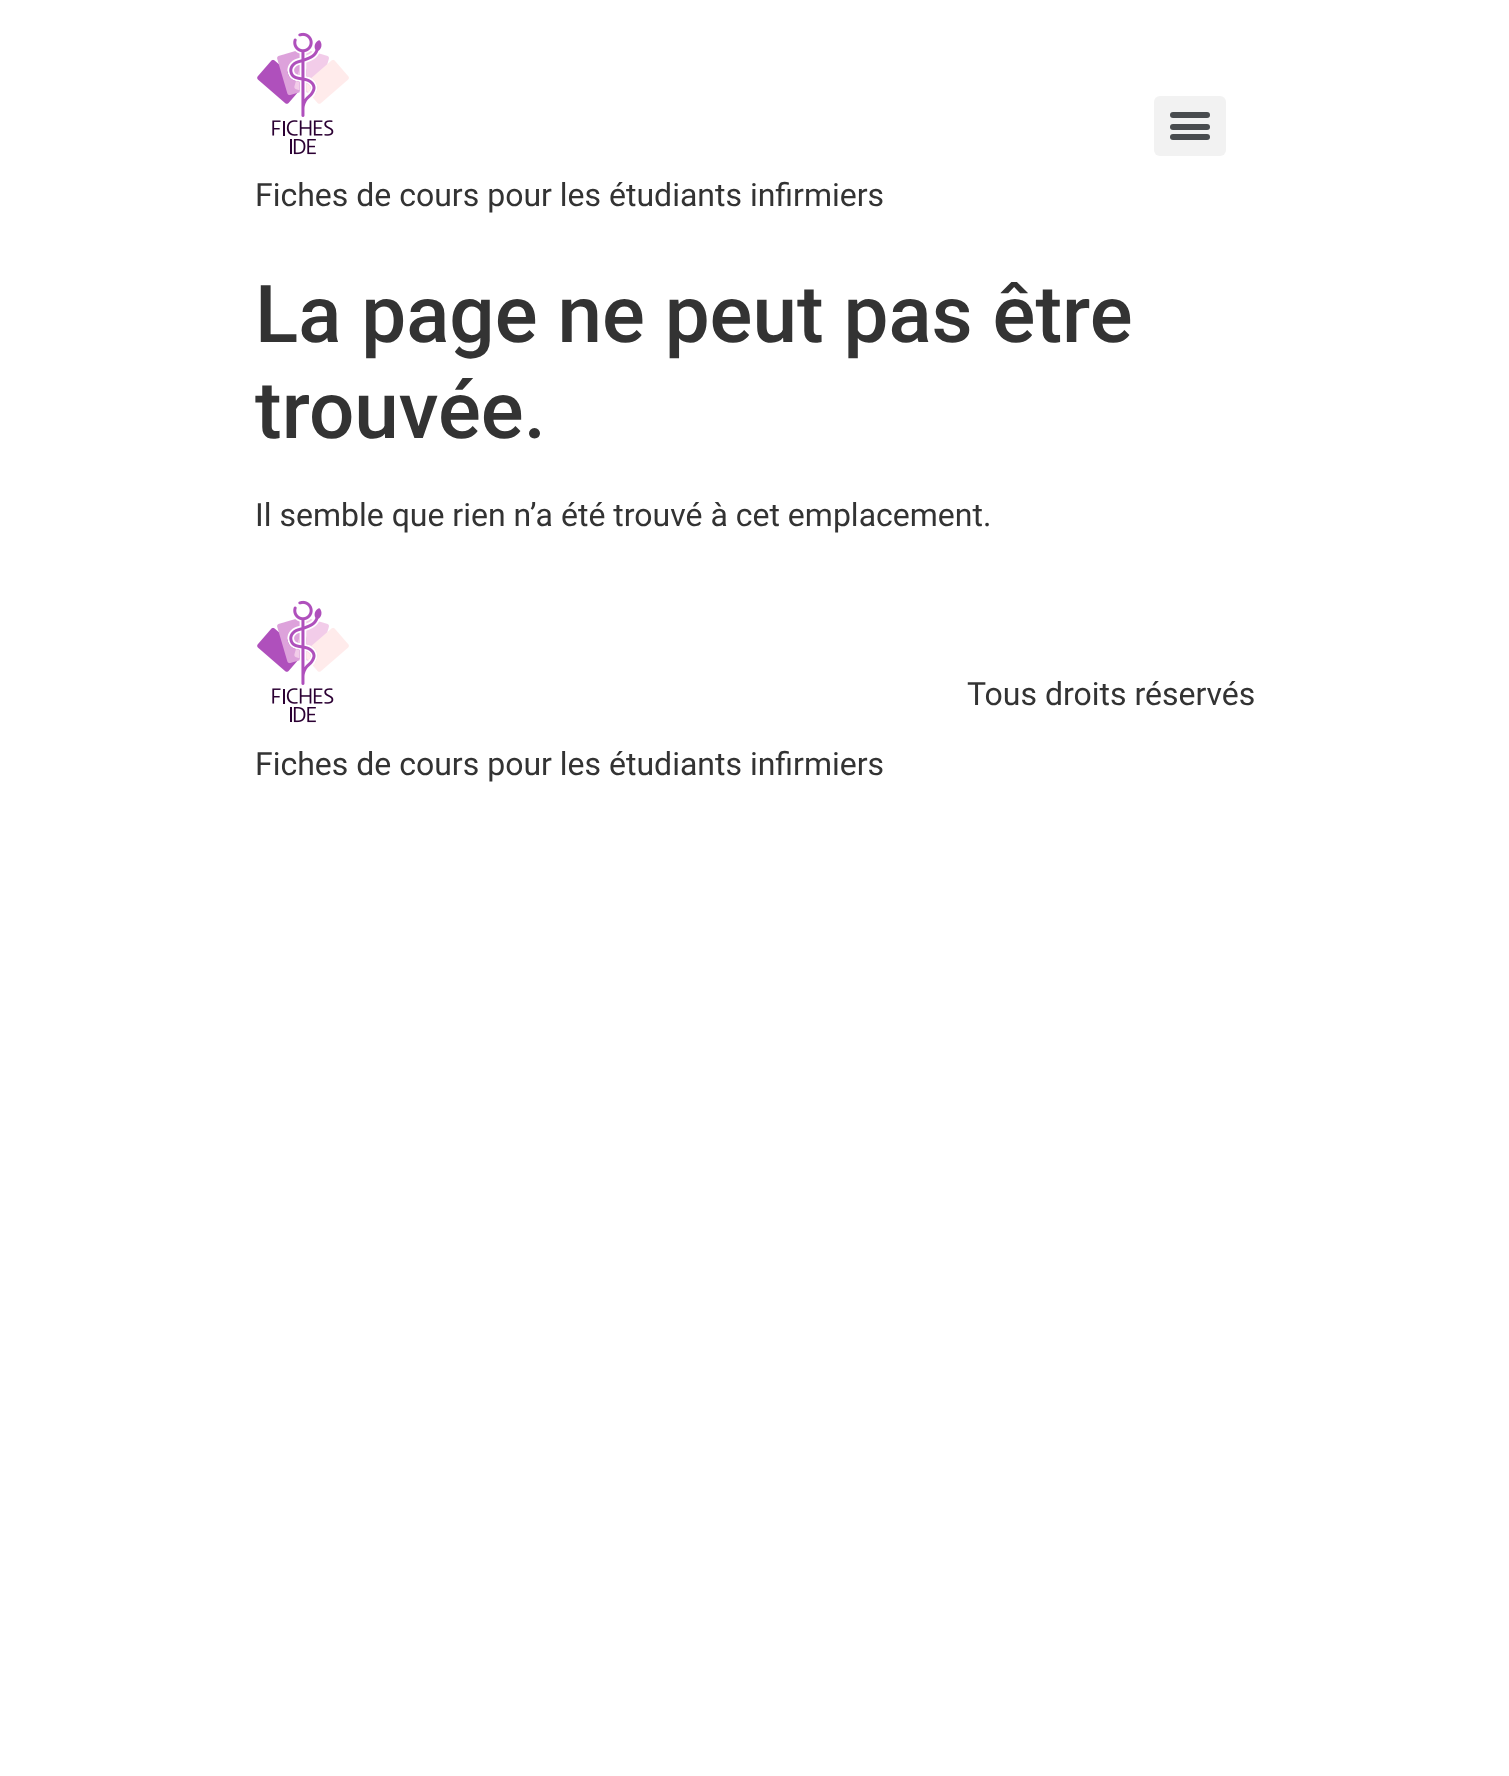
<svg xmlns="http://www.w3.org/2000/svg" width="1509" height="1776" viewBox="0 0 1509 1776">
  <rect width="100%" height="100%" fill="#ffffff"/>
  <rect x="1154" y="96" width="72" height="60" rx="6" fill="#f2f2f2"/>
  <rect x="1170" y="124" width="40" height="6" rx="3" fill="#494c4f"/>
  <rect x="1170" y="112" width="40" height="6" rx="3" fill="#494c4f"/>
  <rect x="1170" y="134" width="40" height="6" rx="3" fill="#494c4f"/>
  <image x="257" y="32" width="92" height="123" href="img1.png"/>
  <text x="255" y="206" font-family="Roboto" font-size="32" fill="#333333">Fiches de cours pour les étudiants infirmiers</text>
  <text x="255" y="342" font-family="Roboto" font-size="80" font-weight="500" fill="#333333">La page ne peut pas être</text>
  <text x="255" y="438" font-family="Roboto" font-size="80" font-weight="500" fill="#333333">trouvée.</text>
  <text x="255" y="526" font-family="Roboto" font-size="32" fill="#333333">Il semble que rien n’a été trouvé à cet emplacement.</text>
  <text x="967" y="705" font-family="Roboto" font-size="32" fill="#333333">Tous droits réservés</text>
  <image x="257" y="600" width="92" height="123" href="img1.png"/>
  <text x="255" y="775" font-family="Roboto" font-size="32" fill="#333333">Fiches de cours pour les étudiants infirmiers</text>
</svg>
